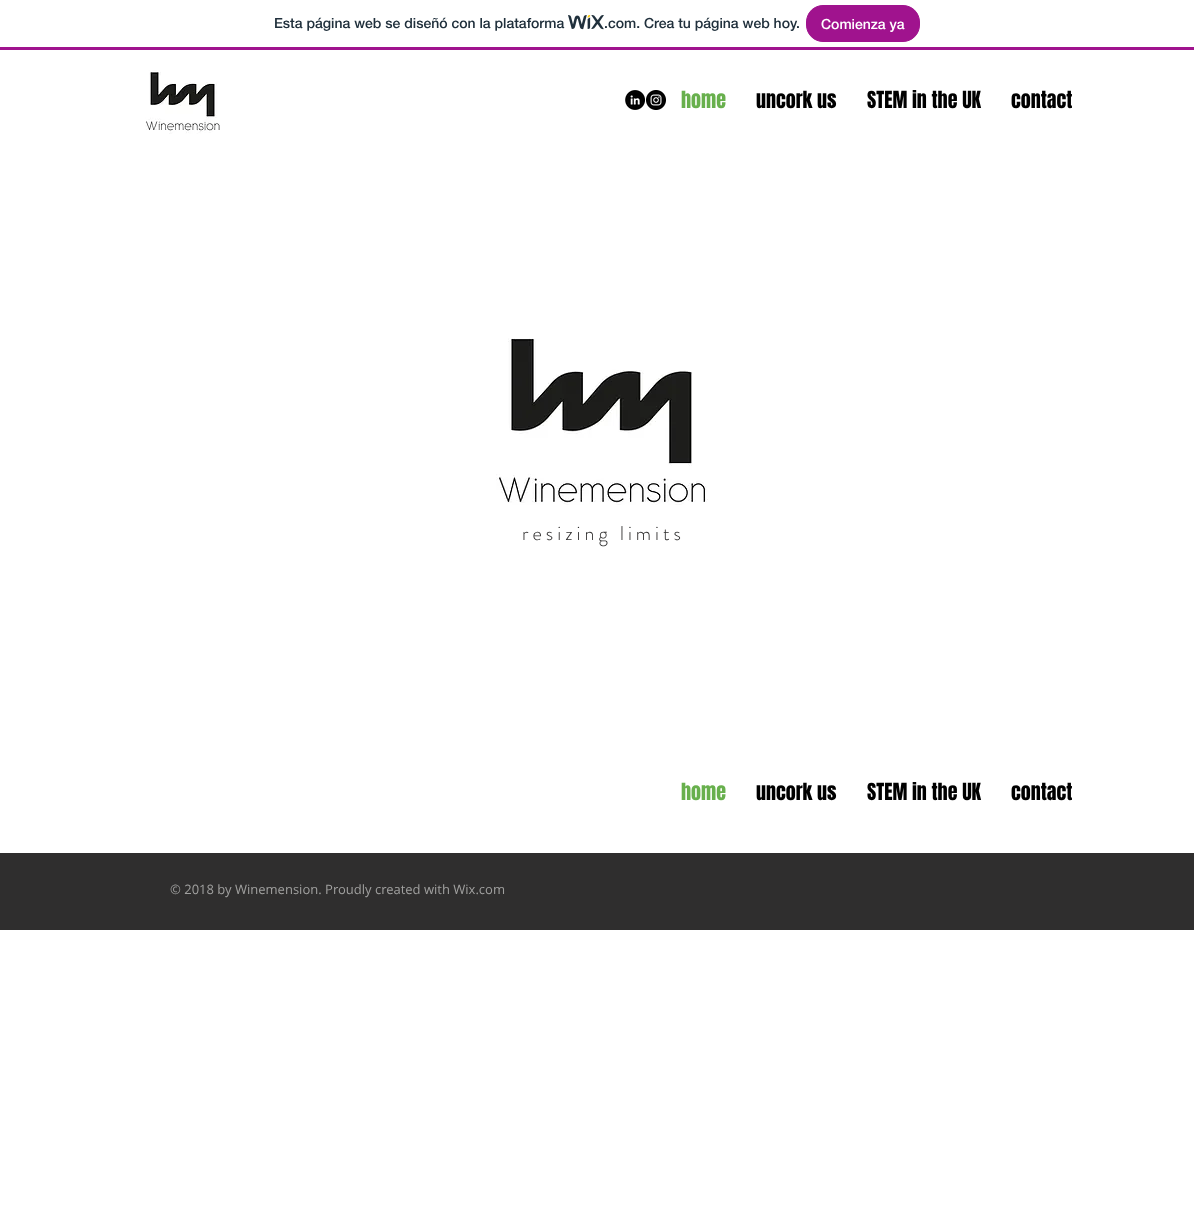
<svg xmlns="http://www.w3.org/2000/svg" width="1194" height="1221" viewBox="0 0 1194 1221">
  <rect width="100%" height="100%" fill="#ffffff"/>
  <rect x="0" y="47" width="1194" height="3" fill="#a0138e"/>
  <text x="274" y="28" font-family="'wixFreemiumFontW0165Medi'" font-size="14" font-weight="500" fill="#20303c">Esta página web se diseñó con la plataforma</text>
  <image x="568" y="15" width="36" height="15" href="img1.png"/>
  <text x="604" y="28" font-family="'wixFreemiumFontW0165Medi'" font-size="14" font-weight="500" fill="#20303c">.com. Crea tu página web hoy.</text>
  <rect x="806.5" y="5.5" width="113" height="36" rx="16.5" fill="#a0138e" stroke="#a0138e"/>
  <text x="821" y="29" font-family="'wixFreemiumFontW0165Medi'" font-size="14" font-weight="500" fill="#ffffff">Comienza ya</text>
  <image x="145" y="70" width="75" height="64" href="img2.png"/>
  <image x="625" y="90" width="20" height="20" href="img3.png"/>
  <image x="646" y="90" width="20" height="20" href="img4.png"/>
  <text x="681" y="108" font-family="Anton" font-size="20" fill="#68b04d">home</text>
  <text x="756" y="108" font-family="Anton" font-size="20" fill="#000000">uncork us</text>
  <text x="867" y="108" font-family="Anton" font-size="20" fill="#000000">STEM in the UK</text>
  <text x="1011" y="108" font-family="Anton" font-size="20" fill="#000000">contact</text>
  <image x="496" y="338" width="212" height="167" href="img5.png"/>
  <text x="522" y="540" font-family="'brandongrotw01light'" font-size="20" font-weight="300" letter-spacing="4" fill="#2f2e2e">resizing limits</text>
  <text x="681" y="800" font-family="Anton" font-size="20" fill="#68b04d">home</text>
  <text x="756" y="800" font-family="Anton" font-size="20" fill="#000000">uncork us</text>
  <text x="867" y="800" font-family="Anton" font-size="20" fill="#000000">STEM in the UK</text>
  <text x="1011" y="800" font-family="Anton" font-size="20" fill="#000000">contact</text>
  <rect x="0" y="853" width="1194" height="77" fill="#2f2e2e"/>
  <text x="170" y="894" font-family="Open Sans" font-size="13" fill="#a0a09f">© 2018 by Winemension. Proudly created with Wix.com</text>
</svg>
